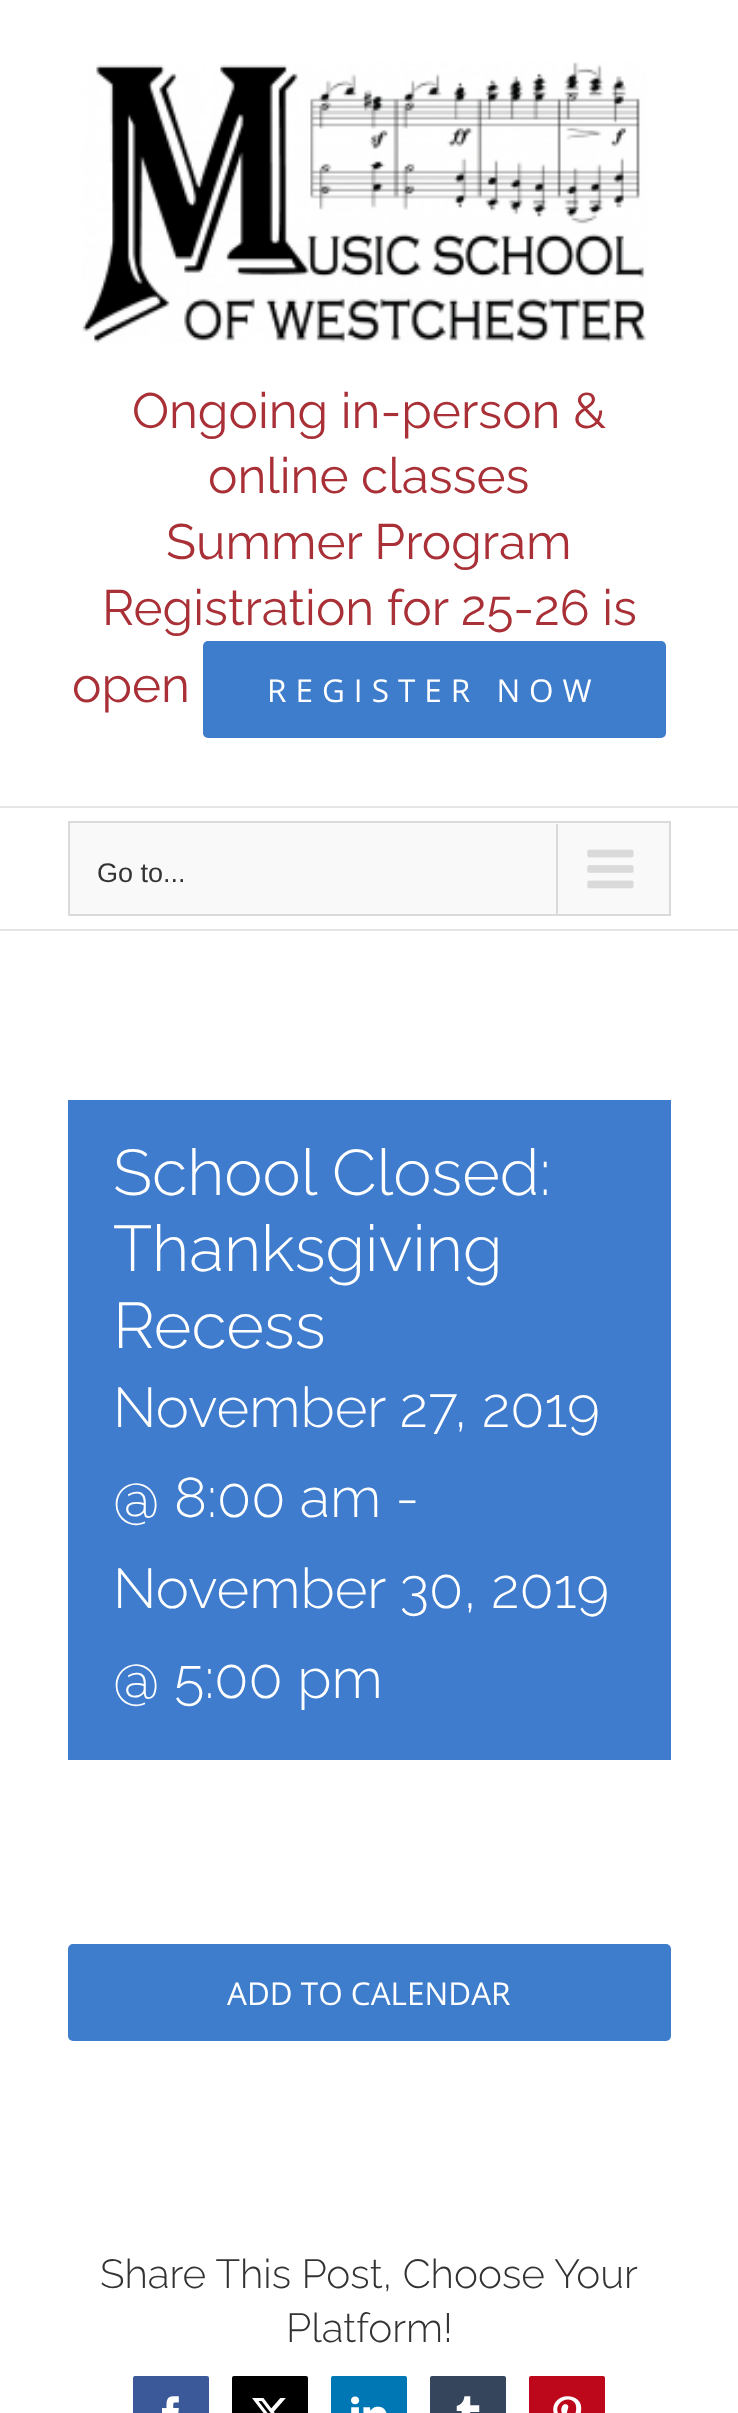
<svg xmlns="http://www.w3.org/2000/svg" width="738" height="2413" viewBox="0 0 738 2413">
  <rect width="100%" height="100%" fill="#ffffff"/>
  <rect x="0" y="806" width="738" height="2" fill="#e5e5e5"/>
  <image x="82" y="62" width="565" height="281" href="img1.png"/>
  <text x="132" y="428" font-family="Raleway" font-size="49.5" fill="#a93037">Ongoing in-person &amp;</text>
  <text x="208" y="493" font-family="Raleway" font-size="49.5" fill="#a93037">online classes</text>
  <text x="166" y="559" font-family="Raleway" font-size="49.5" fill="#a93037">Summer Program</text>
  <text x="102" y="625" font-family="Raleway" font-size="49.5" fill="#a93037">Registration for 25-26 is</text>
  <text x="72" y="702" font-family="Raleway" font-size="49.5" fill="#a93037">open</text>
  <rect x="203" y="641" width="463" height="97" rx="5" fill="#3e7ccc"/>
  <text x="267" y="702" font-family="Open Sans" font-size="31.5" letter-spacing="9" fill="#ffffff">REGISTER NOW</text>
  <rect x="0" y="929" width="738" height="2" fill="#e5e5e5"/>
  <rect x="69" y="822" width="601" height="93" fill="#f9f9f9" stroke="#dadada" stroke-width="2"/>
  <text x="97" y="882" font-family="Liberation Sans" font-size="27" fill="#333333">Go to...</text>
  <rect x="556" y="824" width="2" height="90" fill="#dadada"/>
  <image x="587" y="849" width="47" height="40" href="img2.png"/>
  <rect x="68" y="1100" width="603" height="660" fill="#3f7ccd"/>
  <text x="113" y="1195" font-family="Raleway" font-size="64.5" font-weight="300" fill="#ffffff">School Closed:</text>
  <text x="113" y="1271" font-family="Raleway" font-size="64.5" font-weight="300" fill="#ffffff">Thanksgiving</text>
  <text x="113" y="1348" font-family="Raleway" font-size="64.5" font-weight="300" fill="#ffffff">Recess</text>
  <text x="113" y="1427" font-family="Raleway" font-size="56" font-weight="300" fill="#ffffff">November 27, 2019</text>
  <text x="113" y="1517" font-family="Raleway" font-size="56" font-weight="300" fill="#ffffff">@ 8:00 am -</text>
  <text x="113" y="1608" font-family="Raleway" font-size="56" font-weight="300" fill="#ffffff">November 30, 2019</text>
  <text x="113" y="1698" font-family="Raleway" font-size="56" font-weight="300" fill="#ffffff">@ 5:00 pm</text>
  <rect x="68" y="1944" width="603" height="97" rx="5" fill="#3e7ccc"/>
  <text x="227" y="2005" font-family="Open Sans" font-size="31.5" fill="#ffffff">ADD TO CALENDAR</text>
  <text x="100" y="2288" font-family="Raleway" font-size="40.5" font-weight="300" fill="#333333">Share This Post, Choose Your</text>
  <text x="286" y="2342" font-family="Raleway" font-size="40.5" font-weight="300" fill="#333333">Platform!</text>
  <rect x="134" y="2377" width="74" height="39" rx="1" fill="#3b5998" stroke="#3b5998" stroke-width="2"/>
  <image x="162" y="2396" width="17" height="17" href="img3.png"/>
  <rect x="233" y="2377" width="74" height="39" rx="1" fill="#000000" stroke="#000000" stroke-width="2"/>
  <image x="252" y="2398" width="34" height="15" href="img4.png"/>
  <rect x="332" y="2377" width="74" height="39" rx="1" fill="#0077b5" stroke="#0077b5" stroke-width="2"/>
  <image x="351" y="2396" width="36" height="17" href="img5.png"/>
  <rect x="431" y="2377" width="74" height="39" rx="1" fill="#35465c" stroke="#35465c" stroke-width="2"/>
  <image x="456" y="2396" width="24" height="17" href="img6.png"/>
  <rect x="530" y="2377" width="74" height="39" rx="1" fill="#bd081c" stroke="#bd081c" stroke-width="2"/>
  <image x="553" y="2396" width="29" height="17" href="img7.png"/>
</svg>
